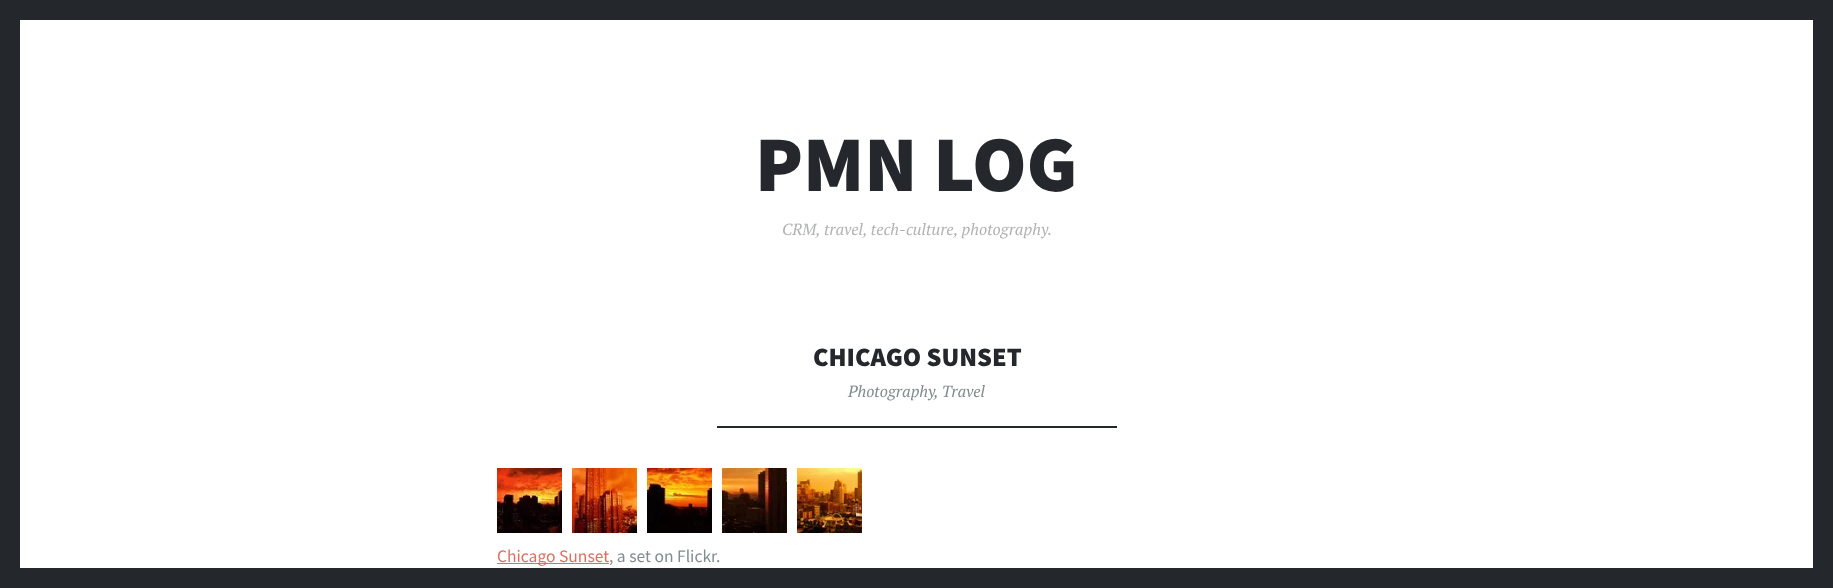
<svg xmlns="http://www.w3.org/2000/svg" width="1833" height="588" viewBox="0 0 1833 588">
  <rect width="100%" height="100%" fill="#24282d"/>
  <rect x="20" y="20" width="1793" height="548" fill="#ffffff"/>
  <text x="755" y="191" font-family="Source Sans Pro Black" font-size="79" font-weight="900" fill="#24282d">PMN LOG</text>
  <text x="782" y="235" font-family="PT Serif" font-size="16.1" font-style="italic" fill="#b1b2b3">CRM, travel, tech-culture, photography.</text>
  <text x="813" y="366" font-family="Source Sans Pro Black" font-size="26.5" font-weight="900" fill="#24282d">CHICAGO SUNSET</text>
  <text x="848" y="397" font-family="PT Serif" font-size="16.1" font-style="italic" fill="#7f8d8c">Photography</text>
  <text x="934" y="397" font-family="PT Serif" font-size="16.1" font-style="italic" fill="#7f8d8c">, Travel</text>
  <rect x="717" y="426" width="400" height="2" fill="#24282d"/>
  <image x="497" y="468" width="65" height="65" href="img1.png"/>
  <image x="572" y="468" width="65" height="65" href="img2.png"/>
  <image x="647" y="468" width="65" height="65" href="img3.png"/>
  <image x="722" y="468" width="65" height="65" href="img4.png"/>
  <image x="797" y="468" width="65" height="65" href="img5.png"/>
  <rect x="497" y="563" width="112" height="1" fill="#e06d5e"/>
  <text x="497" y="562" font-family="Source Sans Pro" font-size="17.5" fill="#e06d5e">Chicago Sunset</text>
  <text x="609" y="562" font-family="Source Sans Pro" font-size="17.5" fill="#7f8d8c">, a set on Flickr.</text>
</svg>
